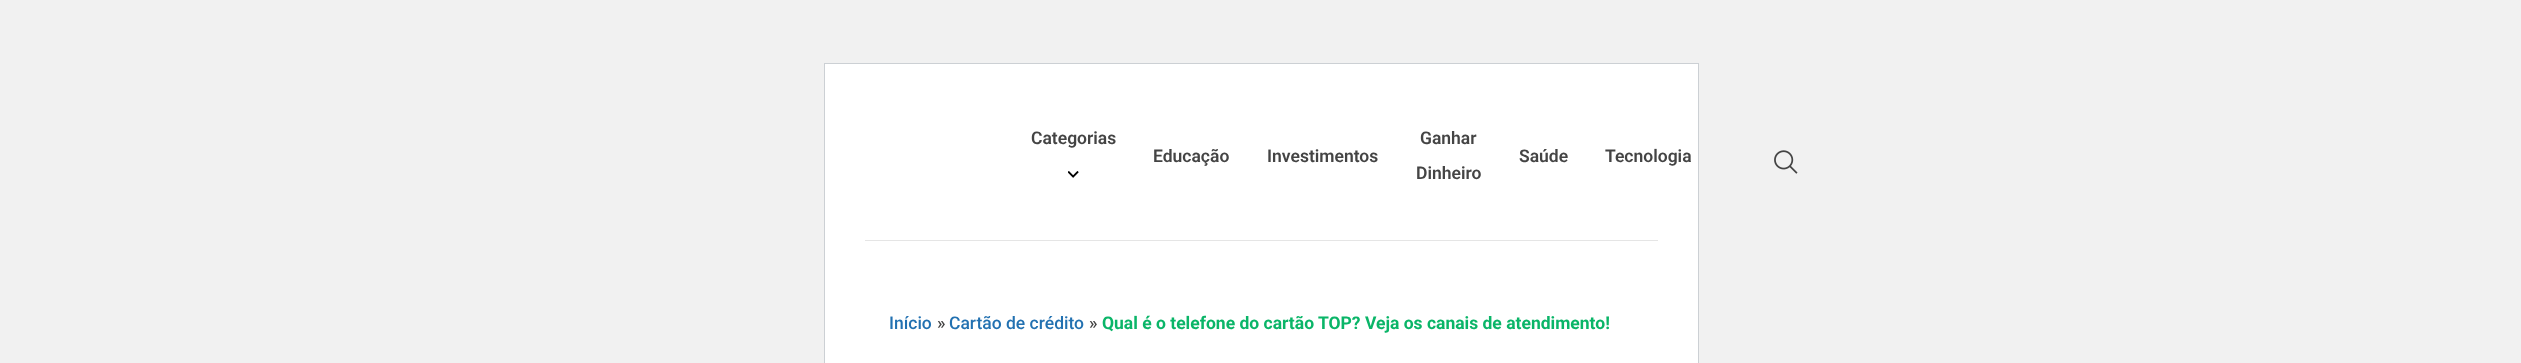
<svg xmlns="http://www.w3.org/2000/svg" width="2521" height="363" viewBox="0 0 2521 363">
  <rect width="100%" height="100%" fill="#f1f1f1"/>
  <rect x="824.5" y="63.5" width="874" height="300" fill="#ffffff" stroke="#ccd0d4"/>
  <rect x="865" y="240" width="793" height="1" fill="#e5e5e5"/>
  <text x="1031" y="144" font-family="Roboto" font-size="17.5" font-weight="600" fill="#444444">Categorias</text>
  <image x="1068" y="171" width="11" height="7" href="img1.png"/>
  <text x="1420" y="144" font-family="Roboto" font-size="17.5" font-weight="600" fill="#444444">Ganhar</text>
  <text x="1416" y="179" font-family="Roboto" font-size="17.5" font-weight="600" fill="#444444">Dinheiro</text>
  <text x="1153" y="162" font-family="Roboto" font-size="17.5" font-weight="600" fill="#444444">Educação</text>
  <text x="1267" y="162" font-family="Roboto" font-size="17.5" font-weight="600" fill="#444444">Investimentos</text>
  <text x="1519" y="162" font-family="Roboto" font-size="17.5" font-weight="600" fill="#444444">Saúde</text>
  <text x="1605" y="162" font-family="Roboto" font-size="17.5" font-weight="600" fill="#444444">Tecnologia</text>
  <image x="1774" y="150" width="24" height="24" href="img2.png"/>
  <text x="889" y="329" font-family="Roboto" font-size="17.5" font-weight="500" fill="#2271b1">Início</text>
  <text x="937" y="329" font-family="Roboto" font-size="17.5" font-weight="500" fill="#444444">»</text>
  <text x="949" y="329" font-family="Roboto" font-size="17.5" font-weight="500" fill="#2271b1">Cartão de crédito</text>
  <text x="1089" y="329" font-family="Roboto" font-size="17.5" font-weight="500" fill="#444444">»</text>
  <text x="1102" y="329" font-family="Roboto" font-size="17.5" font-weight="bold" fill="#0ab568">Qual é o telefone do cartão TOP? Veja os canais de atendimento!</text>
</svg>
